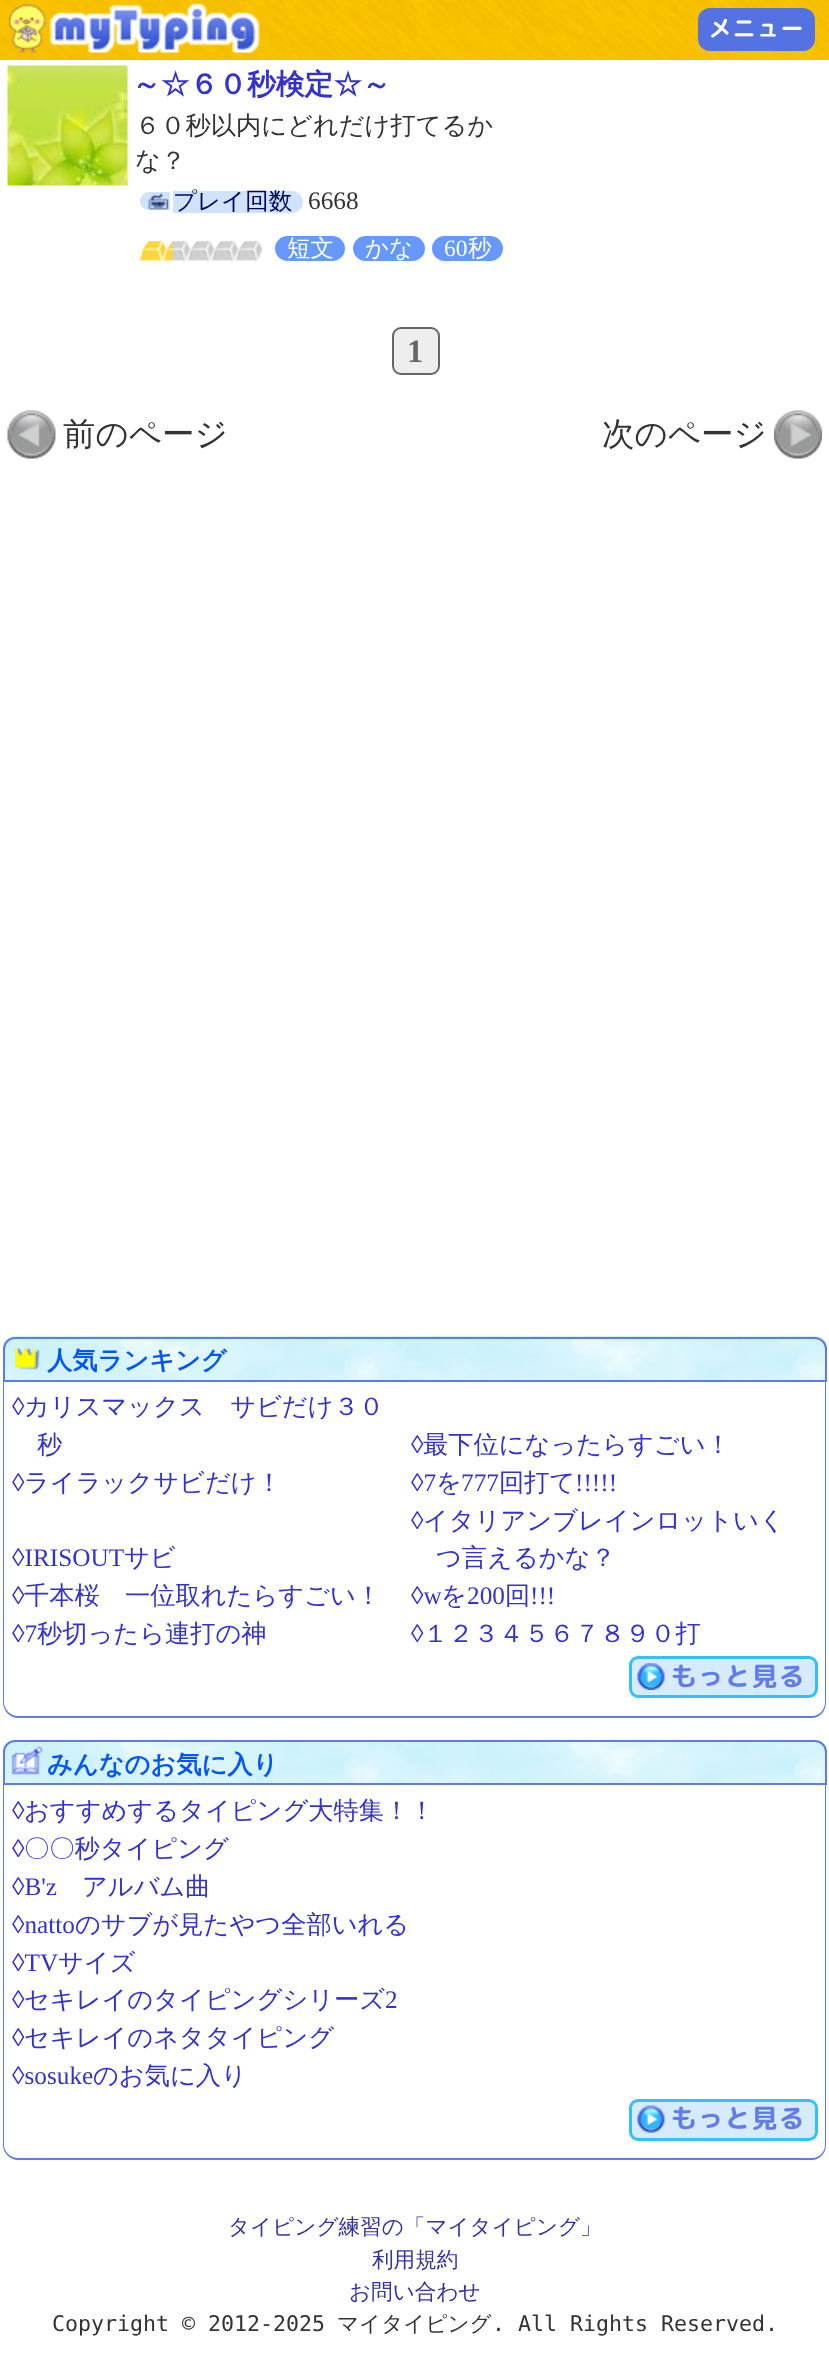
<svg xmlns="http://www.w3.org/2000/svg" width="829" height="2371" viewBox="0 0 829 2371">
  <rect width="100%" height="100%" fill="#ffffff"/>
  <image x="0" y="0" width="829" height="60" href="img1.png"/>
  <image x="9" y="3" width="251" height="50" href="img2.png"/>
  <rect x="698" y="8" width="117" height="43" rx="12" fill="#5572e3"/>
  <text x="708" y="37" font-family="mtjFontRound" font-size="24" font-weight="bold" fill="#ffffff">メニュー</text>
  <image x="7" y="65" width="121" height="121" href="img3.png"/>
  <text x="132" y="94" font-family="WenQuanYi Zen Hei" font-size="28.75" font-weight="bold" fill="#3333cc">～☆６０秒検定☆～</text>
  <text x="135" y="134" font-family="WenQuanYi Zen Hei" font-size="25.25" font-weight="500" fill="#333333">６０秒以内にどれだけ打てるか</text>
  <text x="135" y="169" font-family="WenQuanYi Zen Hei" font-size="25.25" font-weight="500" fill="#333333">な？</text>
  <path d="M149 192H170V210H149C144 210 140 206 140 201C140 196 144 192 149 192Z" fill="#cfe3fa"/>
  <path d="M173 191H292C298 191 303 196 303 202C303 208 298 213 292 213H173Z" fill="#cfe3fa"/>
  <image x="148" y="192" width="22" height="18" href="img4.png"/>
  <text x="173" y="209" font-family="WenQuanYi Zen Hei" font-size="23.5" font-weight="500" fill="#000066">プレイ回数</text>
  <text x="308" y="209" font-family="Liberation Serif" font-size="25.25" fill="#333333">6668</text>
  <image x="139" y="241" width="28" height="20" href="img5.png"/>
  <image x="163" y="241" width="28" height="20" href="img6.png"/>
  <image x="187" y="241" width="28" height="20" href="img7.png"/>
  <image x="211" y="241" width="28" height="20" href="img7.png"/>
  <image x="235" y="241" width="28" height="20" href="img7.png"/>
  <rect x="275" y="236" width="70" height="25" rx="12.5" fill="#6698ff"/>
  <text x="287" y="256" font-family="WenQuanYi Zen Hei" font-size="23.5" font-weight="500" fill="#ffffff">短文</text>
  <rect x="353" y="236" width="72" height="25" rx="12.5" fill="#6698ff"/>
  <text x="365" y="256" font-family="WenQuanYi Zen Hei" font-size="23.5" font-weight="500" fill="#ffffff">かな</text>
  <rect x="432" y="236" width="71" height="25" rx="12.5" fill="#6698ff"/>
  <text x="444" y="256" font-family="Liberation Serif" font-size="23.5" fill="#ffffff">60</text>
  <text x="468" y="256" font-family="WenQuanYi Zen Hei" font-size="23.5" font-weight="500" fill="#ffffff">秒</text>
  <rect x="393" y="328" width="46" height="46" rx="8" fill="#eeeeee" stroke="#666666" stroke-width="2"/>
  <text x="407" y="362" font-family="Liberation Serif" font-size="32.5" font-weight="bold" fill="#666666">1</text>
  <image x="7" y="410" width="49" height="49" href="img8.png"/>
  <text x="63" y="445" font-family="WenQuanYi Zen Hei" font-size="32.5" font-weight="500" fill="#333333">前のページ</text>
  <text x="602" y="445" font-family="WenQuanYi Zen Hei" font-size="32.5" font-weight="500" fill="#333333">次のページ</text>
  <image x="774" y="410" width="48" height="49" href="img9.png"/>
  <image x="3" y="1336" width="824" height="44" href="img10.png"/>
  <path d="M15 1338H815C821 1338 826 1343 826 1349V1381H4V1349C4 1343 9 1338 15 1338Z" fill="none" stroke="#617be3" stroke-width="2"/>
  <image x="14" y="1346" width="26" height="24" href="img11.png"/>
  <text x="47" y="1369" font-family="WenQuanYi Zen Hei" font-size="25.25" font-weight="bold" fill="#0055ff">人気ランキング</text>
  <path d="M3 1382H826V1702C826 1711 820 1718 812 1718H18C10 1718 3 1711 3 1702ZM4 1382H825V1702C825 1710 819 1716 812 1716H18C11 1716 4 1710 4 1702Z" fill="#617be3" fill-rule="evenodd"/>
  <text x="12" y="1415" font-family="Liberation Serif" font-size="25.25" fill="#3333cc">◊</text>
  <text x="24" y="1415" font-family="WenQuanYi Zen Hei" font-size="25.25" font-weight="500" fill="#3333cc">カリスマックス　サビだけ３０</text>
  <text x="37" y="1453" font-family="WenQuanYi Zen Hei" font-size="25.25" font-weight="500" fill="#3333cc">秒</text>
  <text x="411" y="1453" font-family="Liberation Serif" font-size="25.25" fill="#3333cc">◊</text>
  <text x="423" y="1453" font-family="WenQuanYi Zen Hei" font-size="25.25" font-weight="500" fill="#3333cc">最下位になったらすごい！</text>
  <text x="12" y="1491" font-family="Liberation Serif" font-size="25.25" fill="#3333cc">◊</text>
  <text x="24" y="1491" font-family="WenQuanYi Zen Hei" font-size="25.25" font-weight="500" fill="#3333cc">ライラックサビだけ！</text>
  <text x="411" y="1491" font-family="Liberation Serif" font-size="25.25" fill="#3333cc">◊7</text>
  <text x="436" y="1491" font-family="WenQuanYi Zen Hei" font-size="25.25" font-weight="500" fill="#3333cc">を</text>
  <text x="461" y="1491" font-family="Liberation Serif" font-size="25.25" fill="#3333cc">777</text>
  <text x="499" y="1491" font-family="WenQuanYi Zen Hei" font-size="25.25" font-weight="500" fill="#3333cc">回打て</text>
  <text x="575" y="1491" font-family="Liberation Serif" font-size="25.25" fill="#3333cc">!!!!!</text>
  <text x="12" y="1566" font-family="Liberation Serif" font-size="25.25" fill="#3333cc">◊IRISOUT</text>
  <text x="124" y="1566" font-family="WenQuanYi Zen Hei" font-size="25.25" font-weight="500" fill="#3333cc">サビ</text>
  <text x="411" y="1529" font-family="Liberation Serif" font-size="25.25" fill="#3333cc">◊</text>
  <text x="423" y="1529" font-family="WenQuanYi Zen Hei" font-size="25.25" font-weight="500" fill="#3333cc">イタリアンブレインロットいく</text>
  <text x="436" y="1566" font-family="WenQuanYi Zen Hei" font-size="25.25" font-weight="500" fill="#3333cc">つ言えるかな？</text>
  <text x="12" y="1604" font-family="Liberation Serif" font-size="25.25" fill="#3333cc">◊</text>
  <text x="24" y="1604" font-family="WenQuanYi Zen Hei" font-size="25.25" font-weight="500" fill="#3333cc">千本桜　一位取れたらすごい！</text>
  <text x="411" y="1604" font-family="Liberation Serif" font-size="25.25" fill="#3333cc">◊w</text>
  <text x="441" y="1604" font-family="WenQuanYi Zen Hei" font-size="25.25" font-weight="500" fill="#3333cc">を</text>
  <text x="467" y="1604" font-family="Liberation Serif" font-size="25.25" fill="#3333cc">200</text>
  <text x="505" y="1604" font-family="WenQuanYi Zen Hei" font-size="25.25" font-weight="500" fill="#3333cc">回</text>
  <text x="530" y="1604" font-family="Liberation Serif" font-size="25.25" fill="#3333cc">!!!</text>
  <text x="12" y="1642" font-family="Liberation Serif" font-size="25.25" fill="#3333cc">◊7</text>
  <text x="37" y="1642" font-family="WenQuanYi Zen Hei" font-size="25.25" font-weight="500" fill="#3333cc">秒切ったら連打の神</text>
  <text x="411" y="1642" font-family="Liberation Serif" font-size="25.25" fill="#3333cc">◊</text>
  <text x="423" y="1642" font-family="WenQuanYi Zen Hei" font-size="25.25" font-weight="500" fill="#3333cc">１２３４５６７８９０打</text>
  <rect x="630.5" y="1657.5" width="186" height="39" rx="7.5" fill="#d6ebfd" stroke="#34bfff" stroke-width="3"/>
  <image x="637" y="1663" width="28" height="27" href="img12.png"/>
  <text x="670" y="1686" font-family="mtjFontRound" font-size="27" font-weight="bold" fill="#607ced">もっと見る</text>
  <image x="3" y="1739" width="824" height="44" href="img13.png"/>
  <path d="M15 1741H815C821 1741 826 1746 826 1752V1784H4V1752C4 1746 9 1741 15 1741Z" fill="none" stroke="#617be3" stroke-width="2"/>
  <image x="11" y="1746" width="32" height="29" href="img14.png"/>
  <text x="47" y="1773" font-family="WenQuanYi Zen Hei" font-size="25.25" font-weight="bold" fill="#0055ff">みんなのお気に入り</text>
  <path d="M3 1785H826V2145C826 2153 820 2160 812 2160H18C10 2160 3 2153 3 2145ZM4 1785H825V2145C825 2152 819 2158 812 2158H18C11 2158 4 2152 4 2145Z" fill="#617be3" fill-rule="evenodd"/>
  <text x="12" y="1819" font-family="Liberation Serif" font-size="25.25" fill="#3333cc">◊</text>
  <text x="24" y="1819" font-family="WenQuanYi Zen Hei" font-size="25.25" font-weight="500" fill="#3333cc">おすすめするタイピング大特集！！</text>
  <text x="12" y="1857" font-family="Liberation Serif" font-size="25.25" fill="#3333cc">◊</text>
  <text x="24" y="1857" font-family="WenQuanYi Zen Hei" font-size="25.25" font-weight="500" fill="#3333cc">〇〇秒タイピング</text>
  <text x="12" y="1895" font-family="Liberation Serif" font-size="25.25" fill="#3333cc">◊B'z</text>
  <text x="82" y="1895" font-family="WenQuanYi Zen Hei" font-size="25.25" font-weight="500" fill="#3333cc">アルバム曲</text>
  <text x="12" y="1933" font-family="Liberation Serif" font-size="25.25" fill="#3333cc">◊natto</text>
  <text x="75" y="1933" font-family="WenQuanYi Zen Hei" font-size="25.25" font-weight="500" fill="#3333cc">のサブが見たやつ全部いれる</text>
  <text x="12" y="1971" font-family="Liberation Serif" font-size="25.25" fill="#3333cc">◊TV</text>
  <text x="58" y="1971" font-family="WenQuanYi Zen Hei" font-size="25.25" font-weight="500" fill="#3333cc">サイズ</text>
  <text x="12" y="2008" font-family="Liberation Serif" font-size="25.25" fill="#3333cc">◊</text>
  <text x="24" y="2008" font-family="WenQuanYi Zen Hei" font-size="25.25" font-weight="500" fill="#3333cc">セキレイのタイピングシリーズ</text>
  <text x="385" y="2008" font-family="Liberation Serif" font-size="25.25" fill="#3333cc">2</text>
  <text x="12" y="2046" font-family="Liberation Serif" font-size="25.25" fill="#3333cc">◊</text>
  <text x="24" y="2046" font-family="WenQuanYi Zen Hei" font-size="25.25" font-weight="500" fill="#3333cc">セキレイのネタタイピング</text>
  <text x="12" y="2084" font-family="Liberation Serif" font-size="25.25" fill="#3333cc">◊sosuke</text>
  <text x="93" y="2084" font-family="WenQuanYi Zen Hei" font-size="25.25" font-weight="500" fill="#3333cc">のお気に入り</text>
  <rect x="630.5" y="2100.5" width="186" height="39" rx="7.5" fill="#d6ebfd" stroke="#34bfff" stroke-width="3"/>
  <image x="637" y="2105" width="28" height="28" href="img15.png"/>
  <text x="670" y="2128" font-family="mtjFontRound" font-size="27" font-weight="bold" fill="#607ced">もっと見る</text>
  <text x="228" y="2234" font-family="WenQuanYi Zen Hei" font-size="21.6" font-weight="500" fill="#333399">タイピング練習の「マイタイピング」</text>
  <text x="372" y="2267" font-family="WenQuanYi Zen Hei" font-size="21.6" font-weight="500" fill="#333399">利用規約</text>
  <text x="349" y="2299" font-family="WenQuanYi Zen Hei" font-size="21.6" font-weight="500" fill="#333399">お問い合わせ</text>
  <text x="52" y="2331" font-family="DejaVu Sans Mono" font-size="21.6" fill="#333333">Copyright © 2012-2025</text>
  <text x="337" y="2331" font-family="WenQuanYi Zen Hei" font-size="21.6" font-weight="500" fill="#333333">マイタイピング</text>
  <text x="492" y="2331" font-family="DejaVu Sans Mono" font-size="21.6" fill="#333333">. All Rights Reserved.</text>
</svg>
